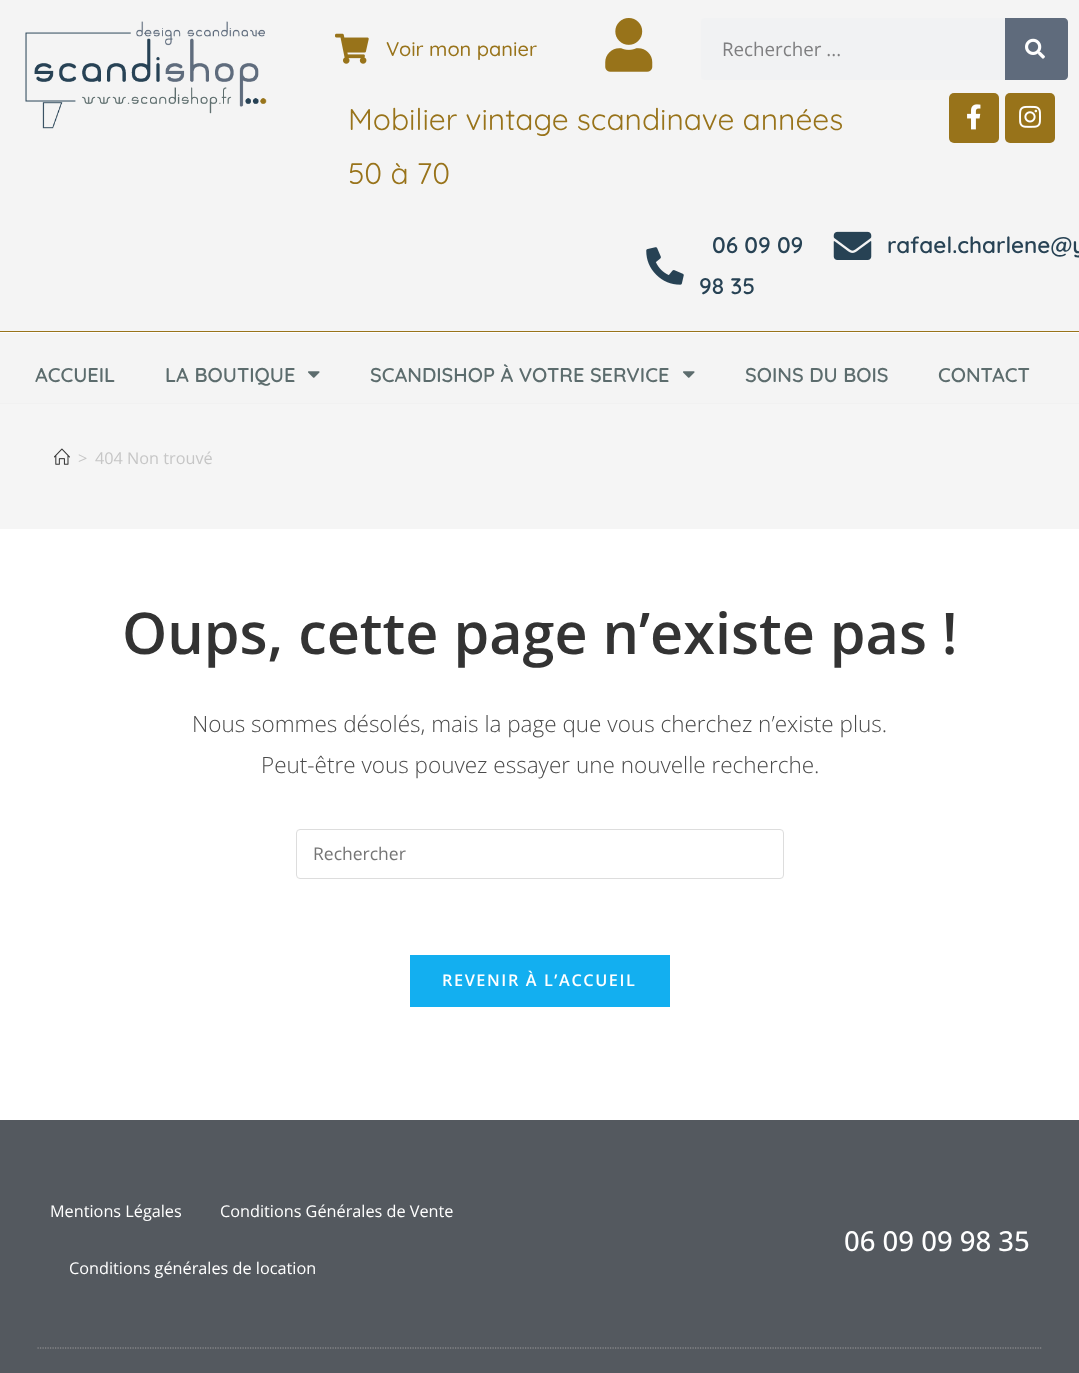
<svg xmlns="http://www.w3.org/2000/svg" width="1079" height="1373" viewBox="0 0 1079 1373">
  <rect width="100%" height="100%" fill="#ffffff"/>
  <rect x="0" y="403" width="1079" height="1" fill="#f1f1f1"/>
  <rect x="0" y="0" width="1079" height="331" fill="#f4f4f4"/>
  <image x="25" y="21" width="242" height="108" href="img1.png"/>
  <image x="335" y="33" width="34" height="31" href="img2.png"/>
  <text x="386" y="56" font-family="Quicksand" font-size="20" font-weight="500" fill="#98731a">Voir mon panier</text>
  <image x="605" y="18" width="48" height="54" href="img3.png"/>
  <rect x="701" y="18" width="367" height="62" rx="4" fill="#f1f2f3"/>
  <text x="722" y="56" font-family="Open Sans" font-size="18.75" fill="#7f7f80">Rechercher ...</text>
  <path d="M1005 18H1064C1066 18 1068 20 1068 22V76C1068 78 1066 80 1064 80H1005Z" fill="#5f6b7c"/>
  <image x="1025" y="38" width="20" height="21" href="img4.png"/>
  <text x="348" y="130" font-family="Quicksand" font-size="30" fill="#98731a">Mobilier vintage scandinave années</text>
  <text x="348" y="184" font-family="Quicksand" font-size="30" fill="#98731a">50 à 70</text>
  <rect x="949" y="93" width="50" height="50" rx="5" fill="#98731a"/>
  <image x="967" y="104" width="14" height="26" href="img5.png"/>
  <rect x="1005" y="93" width="50" height="50" rx="5" fill="#98731a"/>
  <image x="1019" y="105" width="22" height="23" href="img6.png"/>
  <image x="646" y="247" width="38" height="38" href="img7.png"/>
  <text x="712" y="253" font-family="Quicksand" font-size="22.5" font-weight="600" fill="#274254">06 09 09</text>
  <text x="699" y="294" font-family="Quicksand" font-size="22.5" font-weight="600" fill="#274254">98 35</text>
  <image x="833" y="231" width="39" height="29" href="img8.png"/>
  <text x="887" y="253" font-family="Quicksand" font-size="22.5" font-weight="600" fill="#274254">rafael.charlene@y</text>
  <rect x="0" y="333" width="1079" height="70" fill="#f4f4f4"/>
  <rect x="0" y="331" width="1079" height="1" fill="#98731a"/>
  <text x="35" y="382" font-family="Quicksand" font-size="20" font-weight="600" fill="#5c6c6d">ACCUEIL</text>
  <text x="165" y="382" font-family="Quicksand" font-size="20" font-weight="600" fill="#5c6c6d">LA BOUTIQUE</text>
  <image x="308" y="371" width="12" height="7" href="img9.png"/>
  <text x="370" y="382" font-family="Quicksand" font-size="20" font-weight="600" fill="#5c6c6d">SCANDISHOP À VOTRE SERVICE</text>
  <image x="683" y="371" width="12" height="7" href="img9.png"/>
  <text x="745" y="382" font-family="Quicksand" font-size="20" font-weight="600" fill="#5c6c6d">SOINS DU BOIS</text>
  <text x="938" y="382" font-family="Quicksand" font-size="20" font-weight="600" fill="#5c6c6d">CONTACT</text>
  <rect x="0" y="404" width="1079" height="125" fill="#f5f5f5"/>
  <image x="54" y="448" width="16" height="17" href="img10.png"/>
  <text x="78" y="464" font-family="Open Sans" font-size="16.25" fill="#c6c6c6">&gt;</text>
  <text x="95" y="464" font-family="Open Sans" font-size="16.25" fill="#c6c6c6">404 Non trouvé</text>
  <text x="122" y="654" font-family="Open Sans" font-size="57.5" font-weight="600" fill="#333333">Oups, cette page n’existe pas !</text>
  <text x="192" y="732" font-family="Open Sans" font-size="22.5" font-weight="300" fill="#4a4a4a">Nous sommes désolés, mais la page que vous cherchez n’existe plus.</text>
  <text x="261" y="773" font-family="Open Sans" font-size="22.5" font-weight="300" fill="#4a4a4a">Peut-être vous pouvez essayer une nouvelle recherche.</text>
  <rect x="296.5" y="829.5" width="487" height="49" rx="3.5" fill="none" stroke="#dddddd"/>
  <text x="313" y="860" font-family="Open Sans" font-size="17.5" fill="#757575">Rechercher</text>
  <rect x="410" y="955" width="260" height="52" fill="#13aff0"/>
  <text x="442" y="986" font-family="Open Sans" font-size="16.25" font-weight="600" letter-spacing="1.6" fill="#ffffff">REVENIR À L’ACCUEIL</text>
  <rect x="0" y="1120" width="1079" height="253" fill="#54595f"/>
  <path d="M37.5 1348H1042.5" fill="none" stroke="#9b9b9b" stroke-width="1.2" stroke-dasharray="1.25 1.25"/>
  <text x="50" y="1217" font-family="Open Sans" font-size="16.25" fill="#ffffff">Mentions Légales</text>
  <text x="220" y="1217" font-family="Open Sans" font-size="16.25" fill="#ffffff">Conditions Générales de Vente</text>
  <text x="69" y="1274" font-family="Open Sans" font-size="16.25" fill="#ffffff">Conditions générales de location</text>
  <text x="844" y="1251" font-family="Open Sans" font-size="27.5" font-weight="500" fill="#ffffff">06 09 09 98 35</text>
</svg>
